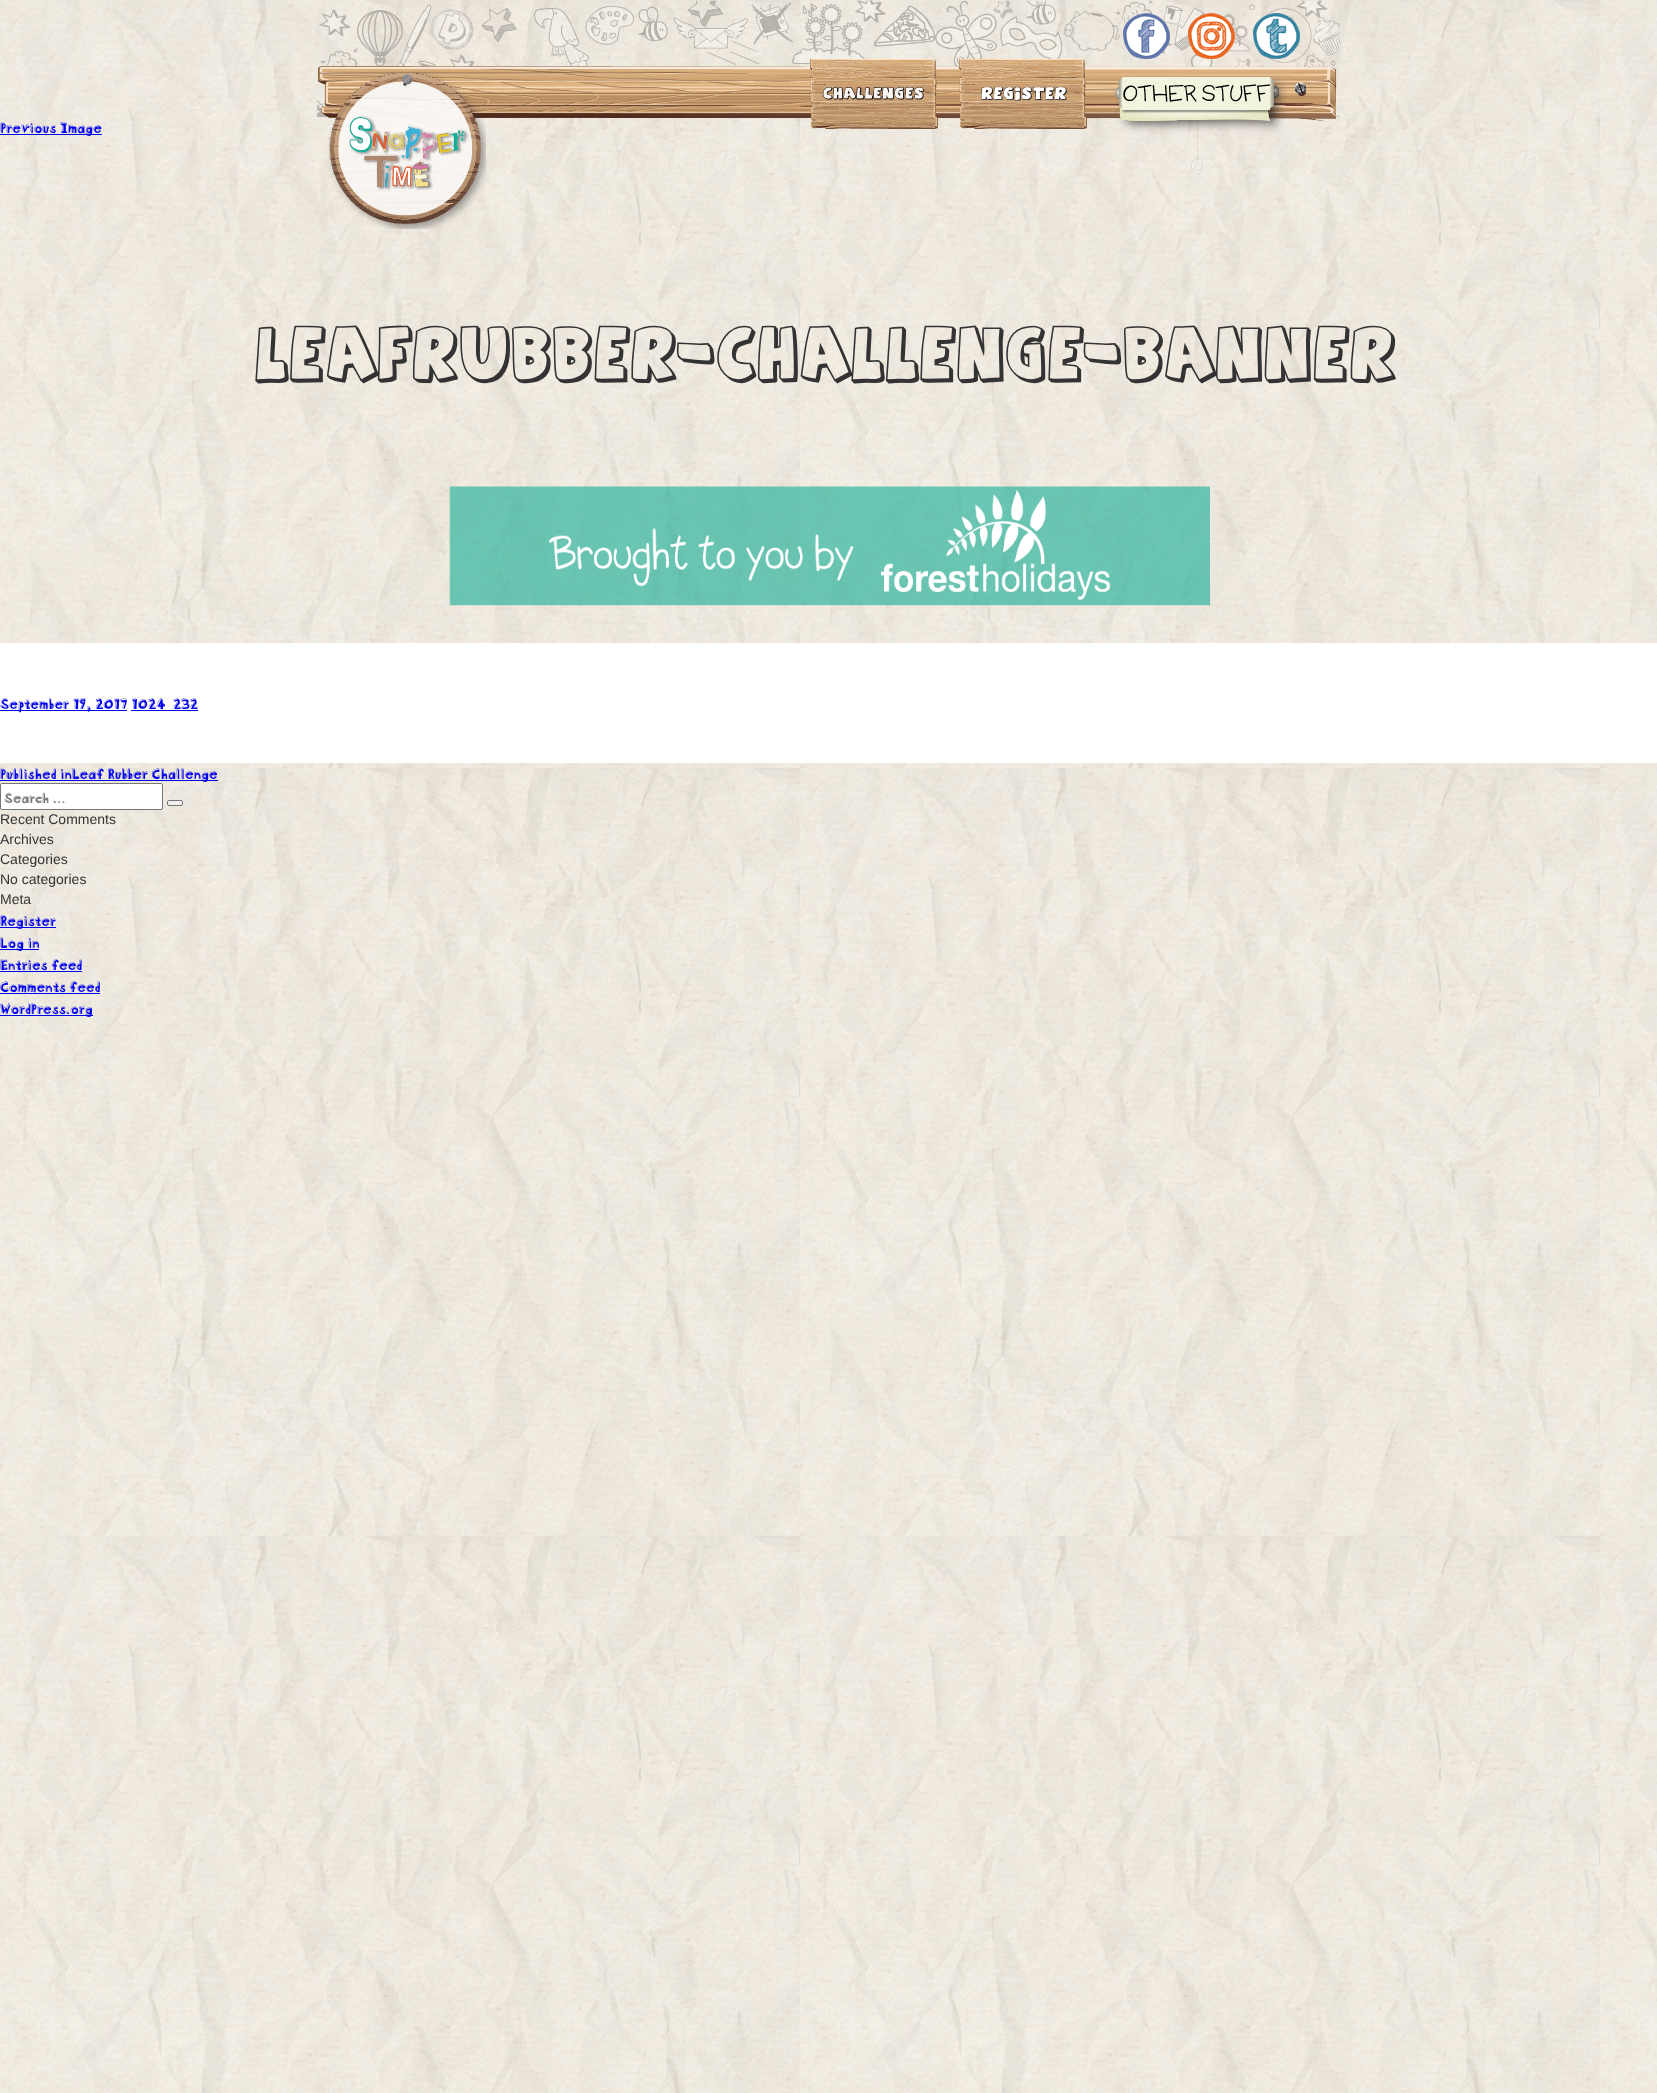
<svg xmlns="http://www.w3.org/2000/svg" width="1657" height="2093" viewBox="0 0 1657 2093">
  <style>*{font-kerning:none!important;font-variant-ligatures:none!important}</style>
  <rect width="100%" height="100%" fill="#ffffff"/>
  <image x="0" y="0" width="1657" height="2093" href="img1.png"/>
  <image x="317" y="0" width="1023" height="117" href="img2.png"/>
  <image x="1123" y="13" width="47" height="46" href="img3.png"/>
  <image x="1188" y="13" width="47" height="46" href="img4.png"/>
  <image x="1253" y="13" width="47" height="46" href="img5.png"/>
  <image x="318" y="66" width="1018" height="56" href="img6.png"/>
  <image x="328" y="71" width="158" height="158" href="img7.png"/>
  <image x="810" y="58" width="128" height="71" href="img8.png"/>
  <image x="959" y="58" width="128" height="71" href="img9.png"/>
  <image x="1115" y="75" width="172" height="97" href="img10.png"/>
  <rect x="0" y="134" width="102" height="1" fill="#0000ee"/>
  <text x="0" y="133" font-family="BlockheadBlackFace" font-size="14" font-weight="900" fill="#0000ee">Previous Image</text>
  <text x="257" y="369" font-family="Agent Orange" font-size="52" fill="#333333">LEAFRUBBER-CHALLENGE-banner</text>
  <image x="449" y="486" width="761" height="120" href="img11.png"/>
  <rect x="0" y="643" width="1657" height="120" fill="#ffffff"/>
  <rect x="0" y="710" width="127" height="1" fill="#0000ee"/>
  <text x="0" y="709" font-family="BlockheadBlackFace" font-size="14" font-weight="900" fill="#0000ee">September 19, 2017 1024 × 232</text>
  <rect x="131" y="710" width="67" height="1" fill="#0000ee"/>
  <rect x="0" y="780" width="218" height="1" fill="#0000ee"/>
  <text x="0" y="779" font-family="BlockheadBlackFace" font-size="14" font-weight="900" fill="#0000ee">Published inLeaf Rubber Challenge</text>
  <rect x="0.5" y="783.5" width="162" height="26" rx="1.5" fill="#ffffff" stroke="#767676"/>
  <text x="4" y="803" font-family="BlockheadBlackFace" font-size="13.5" font-weight="900" fill="#757575">Search …</text>
  <rect x="167.5" y="800.5" width="15" height="5" rx="1.5" fill="#efefef" stroke="#767676"/>
  <text x="0" y="824" font-family="Liberation Sans" font-size="14" fill="#333333">Recent Comments</text>
  <text x="0" y="844" font-family="Liberation Sans" font-size="14" fill="#333333">Archives</text>
  <text x="0" y="864" font-family="Liberation Sans" font-size="14" fill="#333333">Categories</text>
  <text x="0" y="884" font-family="Liberation Sans" font-size="14" fill="#333333">No categories</text>
  <text x="0" y="904" font-family="Liberation Sans" font-size="14" fill="#333333">Meta</text>
  <rect x="0" y="927" width="56" height="1" fill="#0000ee"/>
  <text x="0" y="926" font-family="BlockheadBlackFace" font-size="14" font-weight="900" fill="#0000ee">Register</text>
  <rect x="0" y="949" width="39" height="1" fill="#0000ee"/>
  <text x="0" y="948" font-family="BlockheadBlackFace" font-size="14" font-weight="900" fill="#0000ee">Log in</text>
  <text x="0" y="970" font-family="BlockheadBlackFace" font-size="14" font-weight="900" fill="#0000ee">Entries feed</text>
  <rect x="0" y="971" width="82" height="1" fill="#0000ee"/>
  <text x="0" y="992" font-family="BlockheadBlackFace" font-size="14" font-weight="900" fill="#0000ee">Comments feed</text>
  <rect x="0" y="993" width="100" height="1" fill="#0000ee"/>
  <rect x="0" y="1015" width="93" height="1" fill="#0000ee"/>
  <text x="0" y="1014" font-family="BlockheadBlackFace" font-size="14" font-weight="900" fill="#0000ee">WordPress.org</text>
</svg>
